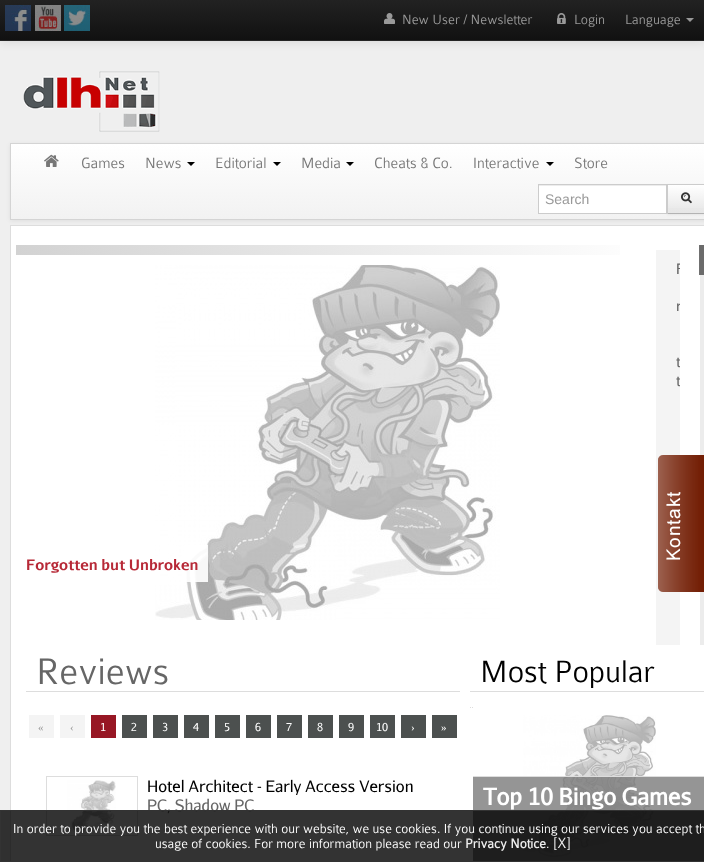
<svg xmlns="http://www.w3.org/2000/svg" width="704" height="862" viewBox="0 0 704 862">
  <defs>
    <filter id="blur1" x="-50%" y="-200%" width="200%" height="500%"><feGaussianBlur stdDeviation="5"/></filter>
    <linearGradient id="g1" gradientUnits="userSpaceOnUse" x1="352" y1="0" x2="352" y2="40"><stop offset="0" stop-color="#222222"/><stop offset="1" stop-color="#111111"/></linearGradient>
    <filter id="blur2" x="-50%" y="-200%" width="200%" height="500%"><feGaussianBlur stdDeviation="2"/></filter>
    <linearGradient id="g2" gradientUnits="userSpaceOnUse" x1="362" y1="144" x2="362" y2="219"><stop offset="0" stop-color="#ffffff"/><stop offset="1" stop-color="#f2f2f2"/></linearGradient>
    <filter id="blur3" x="-50%" y="-200%" width="200%" height="500%"><feGaussianBlur stdDeviation="1"/></filter>
    <linearGradient id="g3" gradientUnits="userSpaceOnUse" x1="687" y1="185" x2="687" y2="213"><stop offset="0" stop-color="#ffffff"/><stop offset="1" stop-color="#e6e6e6"/></linearGradient>
    <clipPath id="clip1"><rect x="656" y="245" width="24" height="400"/></clipPath>
    <linearGradient id="g4" gradientUnits="userSpaceOnUse" x1="16" y1="250" x2="656" y2="250"><stop offset="0" stop-color="#d2d2d2"/><stop offset="1" stop-color="#ffffff"/></linearGradient>
  </defs>
  <rect width="100%" height="100%" fill="#efefef"/>
  <rect x="0" y="1" width="704" height="41" fill="#000000" fill-opacity="0.1" filter="url(#blur1)"/>
  <rect x="0" y="0" width="704" height="40" fill="url(#g1)"/>
  <rect x="0" y="40" width="704" height="1" fill="#252525"/>
  <image x="5" y="5" width="26" height="26" href="img1.png"/>
  <image x="35" y="5" width="26" height="26" href="img2.png"/>
  <image x="64" y="5" width="26" height="26" href="img3.png"/>
  <image x="384" y="13" width="11" height="11" href="img4.png"/>
  <text x="402" y="24" font-family="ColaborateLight" font-size="14.4" font-weight="300" fill="#999999">New User / Newsletter</text>
  <image x="557" y="13" width="9" height="11" href="img5.png"/>
  <text x="574" y="24" font-family="ColaborateLight" font-size="14.4" font-weight="300" fill="#999999">Login</text>
  <text x="625" y="24" font-family="ColaborateLight" font-size="14.4" font-weight="300" fill="#999999">Language</text>
  <path d="M686 18H694L690 22Z" fill="#999999"/>
  <image x="23" y="71" width="137" height="61" href="img6.png"/>
  <rect x="10" y="144" width="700" height="77" fill="#000000" fill-opacity="0.07" filter="url(#blur2)"/>
  <rect x="11" y="144" width="693" height="75" fill="url(#g2)"/>
  <rect x="10.5" y="143.5" width="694" height="76" fill="none" stroke="#d4d4d4"/>
  <image x="44" y="154" width="15" height="13" href="img7.png"/>
  <text x="81" y="168" font-family="ColaborateLight" font-size="16" font-weight="300" fill="#777777">Games</text>
  <text x="145" y="168" font-family="ColaborateLight" font-size="16" font-weight="300" fill="#777777">News</text>
  <path d="M187 162H195L191 166Z" fill="#000000"/>
  <text x="215" y="168" font-family="ColaborateLight" font-size="16" font-weight="300" fill="#777777">Editorial</text>
  <path d="M273 162H281L277 166Z" fill="#000000"/>
  <text x="301" y="168" font-family="ColaborateLight" font-size="16" font-weight="300" fill="#777777">Media</text>
  <path d="M346 162H354L350 166Z" fill="#000000"/>
  <text x="374" y="168" font-family="ColaborateLight" font-size="16" font-weight="300" fill="#777777">Cheats &amp; Co.</text>
  <text x="473" y="168" font-family="ColaborateLight" font-size="16" font-weight="300" fill="#777777">Interactive</text>
  <path d="M546 162H554L550 166Z" fill="#000000"/>
  <text x="574" y="168" font-family="ColaborateLight" font-size="16" font-weight="300" fill="#777777">Store</text>
  <rect x="667" y="185" width="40" height="30" fill="#000000" fill-opacity="0.05" filter="url(#blur3)"/>
  <rect x="539" y="186" width="127" height="27" fill="#ffffff"/>
  <rect x="539" y="185" width="127" height="1" fill="#ececec"/>
  <rect x="538.5" y="184.5" width="128" height="29" fill="none" stroke="#cccccc"/>
  <text x="545" y="204" font-family="Liberation Sans" font-size="14" fill="#999999">Search</text>
  <rect x="668" y="185" width="36" height="23" fill="url(#g3)"/>
  <rect x="667" y="184" width="37" height="1" fill="#cccccc"/>
  <rect x="667" y="213" width="37" height="1" fill="#b3b3b3"/>
  <rect x="667" y="184" width="1" height="30" fill="#cccccc"/>
  <image x="681" y="192" width="11" height="12" href="img8.png"/>
  <rect x="11" y="226" width="693" height="635" fill="#ffffff"/>
  <rect x="699" y="245" width="1" height="30" fill="#707070"/>
  <rect x="10.5" y="225.5" width="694" height="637" fill="none" stroke="#dddddd"/>
  <rect x="656" y="250" width="24" height="395" fill="#f4f4f4"/>
  <g clip-path="url(#clip1)">
    <text x="676" y="274" font-family="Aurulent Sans" font-size="14.4" fill="#666666">F</text>
    <text x="676" y="311" font-family="Aurulent Sans" font-size="14.4" fill="#666666">r</text>
    <text x="676" y="367" font-family="Aurulent Sans" font-size="14.4" fill="#666666">t</text>
    <text x="676" y="386" font-family="Aurulent Sans" font-size="14.4" fill="#666666">t</text>
  </g>
  <rect x="700" y="275" width="4" height="370" fill="#ececec"/>
  <rect x="700" y="245" width="4" height="30" fill="#6b6b6b"/>
  <rect x="16" y="245" width="604" height="10" fill="url(#g4)"/>
  <image x="155" y="265" width="345" height="355" href="img9.png"/>
  <rect x="184" y="545" width="24" height="37" fill="#ffffff" fill-opacity="0.9"/>
  <text x="26" y="570" font-family="Aurulent Sans" font-size="14.4" font-weight="bold" fill="#b72937">Forgotten but Unbroken</text>
  <rect x="26" y="691" width="434" height="1" fill="#dddddd"/>
  <text x="36" y="684" font-family="ColaborateLight" font-size="39.5" font-weight="300" fill="#666666">Reviews</text>
  <rect x="29" y="715" width="25" height="23" fill="#f4f4f4"/>
  <text x="38" y="731" font-family="Liberation Serif" font-size="11" fill="#999999">«</text>
  <rect x="60" y="715" width="25" height="23" fill="#f4f4f4"/>
  <text x="70" y="731" font-family="Liberation Serif" font-size="11" fill="#999999">‹</text>
  <rect x="91" y="715" width="25" height="23" fill="#971724"/>
  <text x="100" y="731" font-family="Aurulent Sans" font-size="11" fill="#ffffff">1</text>
  <rect x="122" y="715" width="25" height="23" fill="#4c504f"/>
  <text x="131" y="731" font-family="Aurulent Sans" font-size="11" fill="#ffffff">2</text>
  <rect x="153" y="715" width="25" height="23" fill="#4c504f"/>
  <text x="162" y="731" font-family="Aurulent Sans" font-size="11" fill="#ffffff">3</text>
  <rect x="184" y="715" width="25" height="23" fill="#4c504f"/>
  <text x="193" y="731" font-family="Aurulent Sans" font-size="11" fill="#ffffff">4</text>
  <rect x="215" y="715" width="25" height="23" fill="#4c504f"/>
  <text x="224" y="731" font-family="Aurulent Sans" font-size="11" fill="#ffffff">5</text>
  <rect x="246" y="715" width="25" height="23" fill="#4c504f"/>
  <text x="255" y="731" font-family="Aurulent Sans" font-size="11" fill="#ffffff">6</text>
  <rect x="277" y="715" width="25" height="23" fill="#4c504f"/>
  <text x="286" y="731" font-family="Aurulent Sans" font-size="11" fill="#ffffff">7</text>
  <rect x="308" y="715" width="25" height="23" fill="#4c504f"/>
  <text x="317" y="731" font-family="Aurulent Sans" font-size="11" fill="#ffffff">8</text>
  <rect x="339" y="715" width="25" height="23" fill="#4c504f"/>
  <text x="348" y="731" font-family="Aurulent Sans" font-size="11" fill="#ffffff">9</text>
  <rect x="370" y="715" width="25" height="23" fill="#4c504f"/>
  <text x="376" y="731" font-family="Aurulent Sans" font-size="11" fill="#ffffff">10</text>
  <rect x="401" y="715" width="25" height="23" fill="#4c504f"/>
  <text x="411" y="731" font-family="Liberation Serif" font-size="11" fill="#ffffff">›</text>
  <rect x="432" y="715" width="25" height="23" fill="#4c504f"/>
  <text x="441" y="731" font-family="Liberation Serif" font-size="11" fill="#ffffff">»</text>
  <rect x="46.5" y="776.5" width="91" height="59" fill="none" stroke="#dddddd"/>
  <image x="67" y="780" width="49" height="53" href="img10.png"/>
  <text x="147" y="792" font-family="Aurulent Sans" font-size="15.8" fill="#000000">Hotel Architect - Early Access Version</text>
  <text x="147" y="811" font-family="Aurulent Sans" font-size="15.8" fill="#666666">PC, Shadow PC</text>
  <rect x="470" y="691" width="234" height="1" fill="#dddddd"/>
  <text x="480" y="682" font-family="ColaborateLight" font-size="33" font-weight="300" fill="#000000">Most Popular</text>
  <path d="M470 707.5H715" fill="none" stroke="#dddddd" stroke-dasharray="1 1"/>
  <rect x="474" y="707" width="229" height="1" fill="#ffffff"/>
  <image x="523" y="715" width="133" height="143" href="img11.png"/>
  <rect x="473" y="777" width="231" height="84" fill="#7a7a7a" fill-opacity="0.8"/>
  <rect x="473" y="776" width="231" height="1" fill="#dddddd"/>
  <text x="483" y="805" font-family="'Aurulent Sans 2'" font-size="23" font-weight="bold" fill="#ffffff">Top 10 Bingo Games</text>
  <image x="658" y="455" width="46" height="137" href="img12.png"/>
  <rect x="0.5" y="810.5" width="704" height="51" fill="#000000" fill-opacity="0.8" stroke="#333333"/>
  <text x="13" y="833" font-family="ColaborateLight" font-size="14" font-weight="300" fill="#ffffff">In order to provide you the best experience with our website, we use cookies. If you continue using our services you accept th</text>
  <text x="155" y="848" font-family="ColaborateLight" font-size="14" font-weight="300" fill="#ffffff">usage of cookies. For more information please read our</text>
  <text x="465" y="848" font-family="ColaborateLight" font-size="14" font-weight="bold" fill="#eeeeee">Privacy Notice</text>
  <text x="546" y="848" font-family="ColaborateLight" font-size="14" font-weight="300" fill="#ffffff">.</text>
  <text x="553" y="848" font-family="ColaborateLight" font-size="16" font-weight="300" fill="#eeeeee">[X]</text>
</svg>
